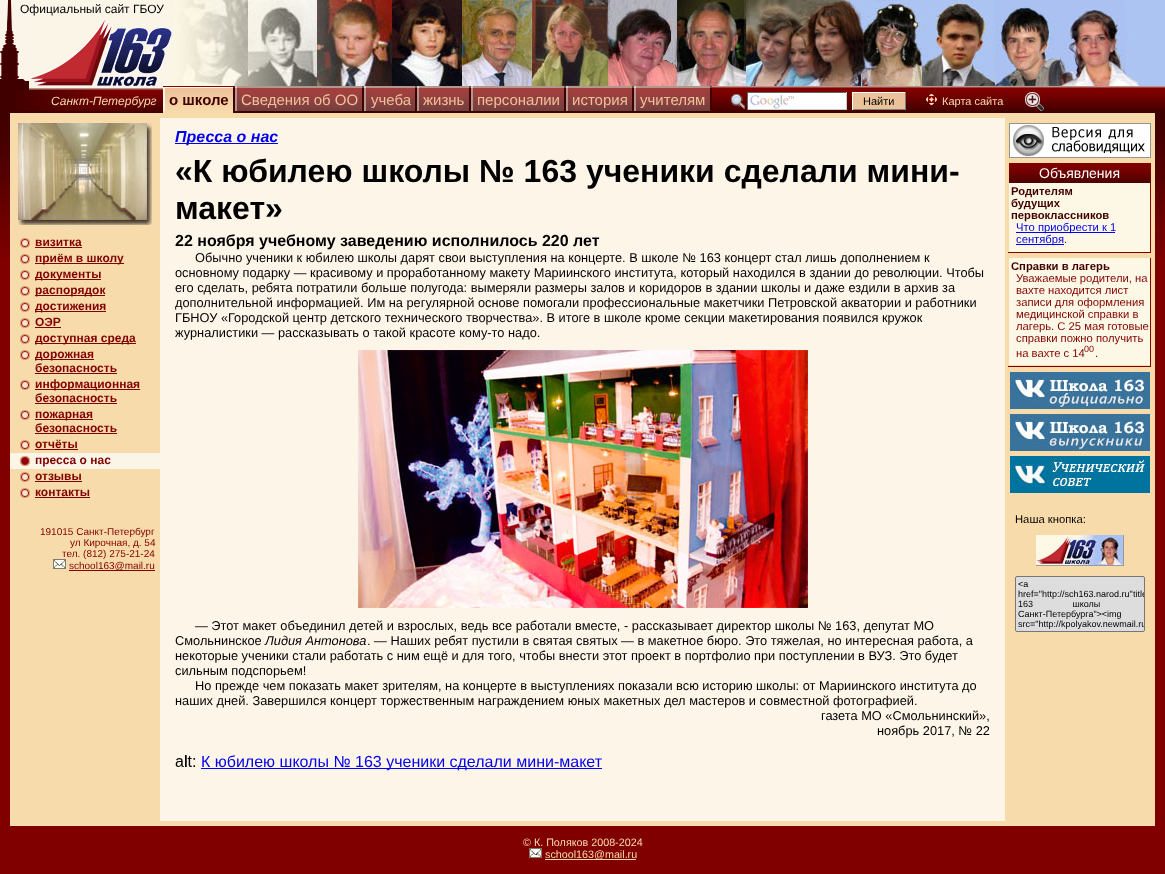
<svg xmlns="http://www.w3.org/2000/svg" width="1165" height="874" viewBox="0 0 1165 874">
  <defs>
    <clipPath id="clip1"><rect x="1016" y="577" width="128" height="54"/></clipPath>
  </defs>
  <rect width="100%" height="100%" fill="#800000"/>
  <rect x="29" y="0" width="145" height="86" fill="#fbf5e8"/>
  <image x="0" y="0" width="29" height="86" href="img1.png"/>
  <text x="20" y="13" font-family="Liberation Sans" font-size="12" fill="#000000">Официальный сайт ГБОУ</text>
  <image x="30" y="19" width="142" height="67" href="img2.png"/>
  <rect x="1139" y="0" width="26" height="86" fill="#acc4f2"/>
  <image x="174" y="0" width="965" height="86" href="img3.png"/>
  <rect x="0" y="86" width="163" height="27" fill="#400000"/>
  <rect x="29" y="86" width="134" height="2" fill="#fbf5e8"/>
  <rect x="29" y="88" width="134" height="1" fill="#b3968e"/>
  <rect x="29" y="89" width="134" height="1" fill="#a2403d"/>
  <image x="16" y="90" width="147" height="21" href="img4.png"/>
  <text x="51" y="105" font-family="Liberation Sans" font-size="12" font-style="italic" fill="#f8dbab">Санкт-Петербург</text>
  <rect x="163" y="87" width="70" height="1" fill="#fdf8e5"/>
  <rect x="163" y="88" width="2" height="23" fill="#fdf8e5"/>
  <image x="165" y="88" width="68" height="23" href="img5.png"/>
  <text x="169" y="105" font-family="Liberation Sans" font-size="15" font-weight="bold" fill="#400000">о школе</text>
  <rect x="233" y="88" width="2" height="25" fill="#400000"/>
  <rect x="163" y="111" width="70" height="2" fill="#f8dbab"/>
  <rect x="235" y="86" width="2" height="2" fill="#dfd0c5"/>
  <rect x="237" y="86" width="125" height="2" fill="#b3968e"/>
  <rect x="362" y="86" width="2" height="2" fill="#794b48"/>
  <rect x="235" y="88" width="2" height="23" fill="#b3968e"/>
  <image x="237" y="88" width="125" height="23" href="img6.png"/>
  <image x="241" y="91" width="117" height="17" href="img7.png"/>
  <text x="241" y="105" font-family="Liberation Sans" font-size="15" fill="#ecc29a">Сведения об ОО</text>
  <rect x="362" y="88" width="2" height="23" fill="#400000"/>
  <rect x="235" y="111" width="930" height="2" fill="#400000"/>
  <rect x="364" y="86" width="2" height="2" fill="#dfd0c5"/>
  <rect x="366" y="86" width="49" height="2" fill="#b3968e"/>
  <rect x="415" y="86" width="2" height="2" fill="#794b48"/>
  <rect x="364" y="88" width="2" height="23" fill="#b3968e"/>
  <image x="366" y="88" width="49" height="23" href="img8.png"/>
  <image x="371" y="91" width="40" height="17" href="img9.png"/>
  <text x="371" y="105" font-family="Liberation Sans" font-size="15" fill="#ecc29a">учеба</text>
  <rect x="415" y="88" width="2" height="23" fill="#400000"/>
  <rect x="417" y="86" width="2" height="2" fill="#dfd0c5"/>
  <rect x="419" y="86" width="50" height="2" fill="#b3968e"/>
  <rect x="469" y="86" width="2" height="2" fill="#794b48"/>
  <rect x="417" y="88" width="2" height="23" fill="#b3968e"/>
  <image x="419" y="88" width="50" height="23" href="img10.png"/>
  <image x="423" y="91" width="41" height="17" href="img11.png"/>
  <text x="423" y="105" font-family="Liberation Sans" font-size="15" fill="#ecc29a">жизнь</text>
  <rect x="469" y="88" width="2" height="23" fill="#400000"/>
  <rect x="471" y="86" width="2" height="2" fill="#dfd0c5"/>
  <rect x="473" y="86" width="91" height="2" fill="#b3968e"/>
  <rect x="564" y="86" width="2" height="2" fill="#794b48"/>
  <rect x="471" y="88" width="2" height="23" fill="#b3968e"/>
  <image x="473" y="88" width="91" height="23" href="img12.png"/>
  <image x="477" y="91" width="83" height="17" href="img13.png"/>
  <text x="477" y="105" font-family="Liberation Sans" font-size="15" fill="#ecc29a">персоналии</text>
  <rect x="564" y="88" width="2" height="23" fill="#400000"/>
  <rect x="566" y="86" width="2" height="2" fill="#dfd0c5"/>
  <rect x="568" y="86" width="64" height="2" fill="#b3968e"/>
  <rect x="632" y="86" width="2" height="2" fill="#794b48"/>
  <rect x="566" y="88" width="2" height="23" fill="#b3968e"/>
  <image x="568" y="88" width="64" height="23" href="img14.png"/>
  <image x="572" y="91" width="56" height="17" href="img15.png"/>
  <text x="572" y="105" font-family="Liberation Sans" font-size="15" fill="#ecc29a">история</text>
  <rect x="632" y="88" width="2" height="23" fill="#400000"/>
  <rect x="634" y="86" width="2" height="2" fill="#dfd0c5"/>
  <rect x="636" y="86" width="74" height="2" fill="#b3968e"/>
  <rect x="710" y="86" width="2" height="2" fill="#794b48"/>
  <rect x="634" y="88" width="2" height="23" fill="#b3968e"/>
  <image x="636" y="88" width="74" height="23" href="img16.png"/>
  <image x="640" y="91" width="66" height="17" href="img17.png"/>
  <text x="640" y="105" font-family="Liberation Sans" font-size="15" fill="#ecc29a">учителям</text>
  <rect x="710" y="88" width="2" height="23" fill="#400000"/>
  <rect x="712" y="86" width="453" height="1" fill="#b3968e"/>
  <rect x="712" y="87" width="453" height="1" fill="#a2403d"/>
  <image x="712" y="92" width="453" height="19" href="img18.png"/>
  <image x="731" y="94" width="14" height="15" href="img19.png"/>
  <rect x="748" y="93" width="98" height="16" fill="#ffffff"/>
  <image x="750" y="95" width="44" height="14" href="img20.png"/>
  <rect x="747" y="92" width="100" height="1" fill="#666666"/>
  <rect x="846" y="92" width="1" height="18" fill="#cccccc"/>
  <rect x="747" y="109" width="100" height="1" fill="#cccccc"/>
  <rect x="747" y="92" width="1" height="18" fill="#666666"/>
  <rect x="853" y="93" width="52" height="16" fill="#ecc29a"/>
  <rect x="852" y="92" width="54" height="1" fill="#ffffff"/>
  <rect x="905" y="92" width="1" height="18" fill="#808080"/>
  <rect x="852" y="109" width="54" height="1" fill="#808080"/>
  <rect x="852" y="92" width="1" height="18" fill="#ffffff"/>
  <text x="863" y="105" font-family="Liberation Sans" font-size="11" fill="#000000">Найти</text>
  <image x="926" y="94" width="11" height="11" href="img21.png"/>
  <text x="942" y="105" font-family="Liberation Sans" font-size="11" fill="#f8dbab">Карта сайта</text>
  <image x="1025" y="92" width="19" height="19" href="img22.png"/>
  <rect x="160" y="118" width="845" height="703" fill="#fdf5e8"/>
  <image x="0" y="113" width="10" height="144" href="img23.png"/>
  <rect x="10" y="113" width="150" height="708" fill="#f8dbab"/>
  <image x="18" y="123" width="134" height="102" href="img24.png"/>
  <image x="20" y="238" width="10" height="10" href="img25.png"/>
  <text x="35" y="246" font-family="Liberation Sans" font-size="12" font-weight="bold" fill="#800000">визитка</text>
  <rect x="35" y="247" width="47" height="1" fill="#800000"/>
  <image x="20" y="254" width="10" height="10" href="img25.png"/>
  <rect x="35" y="263" width="89" height="1" fill="#800000"/>
  <text x="35" y="262" font-family="Liberation Sans" font-size="12" font-weight="bold" fill="#800000">приём в школу</text>
  <image x="20" y="270" width="10" height="10" href="img25.png"/>
  <rect x="35" y="279" width="66" height="1" fill="#800000"/>
  <text x="35" y="278" font-family="Liberation Sans" font-size="12" font-weight="bold" fill="#800000">документы</text>
  <image x="20" y="286" width="10" height="10" href="img25.png"/>
  <rect x="35" y="295" width="70" height="1" fill="#800000"/>
  <text x="35" y="294" font-family="Liberation Sans" font-size="12" font-weight="bold" fill="#800000">распорядок</text>
  <image x="20" y="302" width="10" height="10" href="img25.png"/>
  <rect x="35" y="311" width="71" height="1" fill="#800000"/>
  <text x="35" y="310" font-family="Liberation Sans" font-size="12" font-weight="bold" fill="#800000">достижения</text>
  <image x="20" y="318" width="10" height="10" href="img25.png"/>
  <text x="35" y="326" font-family="Liberation Sans" font-size="12" font-weight="bold" fill="#800000">ОЭР</text>
  <rect x="35" y="327" width="26" height="1" fill="#800000"/>
  <image x="20" y="334" width="10" height="10" href="img25.png"/>
  <rect x="35" y="343" width="101" height="1" fill="#800000"/>
  <text x="35" y="342" font-family="Liberation Sans" font-size="12" font-weight="bold" fill="#800000">доступная среда</text>
  <image x="20" y="350" width="10" height="10" href="img25.png"/>
  <rect x="35" y="359" width="59" height="1" fill="#800000"/>
  <text x="35" y="358" font-family="Liberation Sans" font-size="12" font-weight="bold" fill="#800000">дорожная</text>
  <text x="35" y="372" font-family="Liberation Sans" font-size="12" font-weight="bold" fill="#800000">безопасность</text>
  <rect x="35" y="373" width="82" height="1" fill="#800000"/>
  <image x="20" y="380" width="10" height="10" href="img25.png"/>
  <rect x="35" y="389" width="105" height="1" fill="#800000"/>
  <text x="35" y="388" font-family="Liberation Sans" font-size="12" font-weight="bold" fill="#800000">информационная</text>
  <text x="35" y="402" font-family="Liberation Sans" font-size="12" font-weight="bold" fill="#800000">безопасность</text>
  <rect x="35" y="403" width="82" height="1" fill="#800000"/>
  <image x="20" y="410" width="10" height="10" href="img25.png"/>
  <rect x="35" y="419" width="58" height="1" fill="#800000"/>
  <text x="35" y="418" font-family="Liberation Sans" font-size="12" font-weight="bold" fill="#800000">пожарная</text>
  <text x="35" y="432" font-family="Liberation Sans" font-size="12" font-weight="bold" fill="#800000">безопасность</text>
  <rect x="35" y="433" width="82" height="1" fill="#800000"/>
  <image x="20" y="440" width="10" height="10" href="img25.png"/>
  <text x="35" y="448" font-family="Liberation Sans" font-size="12" font-weight="bold" fill="#800000">отчёты</text>
  <rect x="35" y="449" width="43" height="1" fill="#800000"/>
  <rect x="10" y="453" width="150" height="16" fill="#fbf5e8"/>
  <image x="20" y="456" width="10" height="10" href="img26.png"/>
  <text x="35" y="464" font-family="Liberation Sans" font-size="12" font-weight="bold" fill="#800000">пресса о нас</text>
  <image x="20" y="472" width="10" height="10" href="img25.png"/>
  <text x="35" y="480" font-family="Liberation Sans" font-size="12" font-weight="bold" fill="#800000">отзывы</text>
  <rect x="35" y="481" width="47" height="1" fill="#800000"/>
  <image x="20" y="488" width="10" height="10" href="img25.png"/>
  <text x="35" y="496" font-family="Liberation Sans" font-size="12" font-weight="bold" fill="#800000">контакты</text>
  <rect x="35" y="497" width="55" height="1" fill="#800000"/>
  <text x="40" y="535" font-family="Liberation Sans" font-size="10" fill="#800000">191015 Санкт-Петербург</text>
  <text x="70" y="546" font-family="Liberation Sans" font-size="10" fill="#800000">ул Кирочная, д. 54</text>
  <text x="62" y="557" font-family="Liberation Sans" font-size="10" fill="#800000">тел. (812) 275-21-24</text>
  <image x="53" y="559" width="13" height="10" href="img27.png"/>
  <rect x="69" y="570" width="86" height="1" fill="#800000"/>
  <text x="69" y="569" font-family="Liberation Sans" font-size="10" fill="#800000">school163@mail.ru</text>
  <rect x="160" y="113" width="845" height="5" fill="#f8dbab"/>
  <rect x="175" y="143" width="103" height="1" fill="#0000ee"/>
  <text x="175" y="142" font-family="Liberation Sans" font-size="16" font-weight="bold" font-style="italic" fill="#0000ee">Пресса о нас</text>
  <text x="175" y="182" font-family="Liberation Sans" font-size="32" font-weight="bold" fill="#000000">«К юбилею школы № 163 ученики сделали мини-</text>
  <text x="175" y="219" font-family="Liberation Sans" font-size="32" font-weight="bold" fill="#000000">макет»</text>
  <text x="175" y="246" font-family="Liberation Sans" font-size="16" font-weight="bold" fill="#000000">22 ноября учебному заведению исполнилось 220 лет</text>
  <text x="195" y="262" font-family="Liberation Sans" font-size="12.8" fill="#000000">Обычно ученики к юбилею школы дарят свои выступления на концерте. В школе № 163 концерт стал лишь дополнением к</text>
  <text x="175" y="277" font-family="Liberation Sans" font-size="12.8" fill="#000000">основному подарку — красивому и проработанному макету Мариинского института, который находился в здании до революции. Чтобы</text>
  <text x="175" y="292" font-family="Liberation Sans" font-size="12.8" fill="#000000">его сделать, ребята потратили больше полугода: вымеряли размеры залов и коридоров в здании школы и даже ездили в архив за</text>
  <text x="175" y="307" font-family="Liberation Sans" font-size="12.8" fill="#000000">дополнительной информацией. Им на регулярной основе помогали профессиональные макетчики Петровской акватории и работники</text>
  <text x="175" y="322" font-family="Liberation Sans" font-size="12.8" fill="#000000">ГБНОУ «Городской центр детского технического творчества». В итоге в школе кроме секции макетирования появился кружок</text>
  <text x="175" y="337" font-family="Liberation Sans" font-size="12.8" fill="#000000">журналистики — рассказывать о такой красоте кому-то надо.</text>
  <image x="358" y="350" width="450" height="258" href="img28.png"/>
  <text x="195" y="630" font-family="Liberation Sans" font-size="12.8" fill="#000000">— Этот макет объединил детей и взрослых, ведь все работали вместе, - рассказывает директор школы № 163, депутат МО</text>
  <text x="175" y="645" font-family="Liberation Sans" font-size="12.8" fill="#000000">Смольнинское</text>
  <text x="265" y="645" font-family="Liberation Sans" font-size="12.8" font-style="italic" fill="#000000">Лидия Антонова</text>
  <text x="367" y="645" font-family="Liberation Sans" font-size="12.8" fill="#000000">. — Наших ребят пустили в святая святых — в макетное бюро. Это тяжелая, но интересная работа, а</text>
  <text x="175" y="660" font-family="Liberation Sans" font-size="12.8" fill="#000000">некоторые ученики стали работать с ним ещё и для того, чтобы внести этот проект в портфолио при поступлении в ВУЗ. Это будет</text>
  <text x="175" y="675" font-family="Liberation Sans" font-size="12.8" fill="#000000">сильным подспорьем!</text>
  <text x="195" y="690" font-family="Liberation Sans" font-size="12.8" fill="#000000">Но прежде чем показать макет зрителям, на концерте в выступлениях показали всю историю школы: от Мариинского института до</text>
  <text x="175" y="705" font-family="Liberation Sans" font-size="12.8" fill="#000000">наших дней. Завершился концерт торжественным награждением юных макетных дел мастеров и совместной фотографией.</text>
  <text x="821" y="720" font-family="Liberation Sans" font-size="12.8" fill="#000000">газета МО «Смольнинский»,</text>
  <text x="877" y="735" font-family="Liberation Sans" font-size="12.8" fill="#000000">ноябрь 2017, № 22</text>
  <image x="175" y="755" width="20" height="12" href="img29.png"/>
  <text x="184" y="767" font-family="Liberation Sans" font-size="16" fill="#000000">l</text>
  <rect x="201" y="768" width="401" height="1" fill="#0000ee"/>
  <text x="201" y="767" font-family="Liberation Sans" font-size="16" fill="#0000ee">К юбилею школы № 163 ученики сделали мини-макет</text>
  <rect x="1005" y="113" width="150" height="708" fill="#f8dbab"/>
  <image x="1009" y="123" width="142" height="35" href="img30.png"/>
  <rect x="1009" y="163" width="142" height="4" fill="#800000"/>
  <image x="1009" y="167" width="142" height="16" href="img31.png"/>
  <text x="1039" y="178" font-family="Liberation Sans" font-size="14" fill="#ffffff">Объявления</text>
  <rect x="1009" y="183" width="141" height="69" fill="#fdf8e5"/>
  <rect x="1150" y="183" width="1" height="70" fill="#800000"/>
  <rect x="1008" y="252" width="143" height="1" fill="#800000"/>
  <text x="1011" y="195" font-family="Liberation Sans" font-size="11.25" font-weight="bold" fill="#400000">Родителям</text>
  <text x="1011" y="207" font-family="Liberation Sans" font-size="11.25" font-weight="bold" fill="#400000">будущих</text>
  <text x="1011" y="219" font-family="Liberation Sans" font-size="11.25" font-weight="bold" fill="#400000">первоклассников</text>
  <rect x="1016" y="232" width="99" height="1" fill="#0000ee"/>
  <text x="1016" y="231" font-family="Liberation Sans" font-size="11.25" fill="#0000ee">Что приобрести к 1</text>
  <rect x="1016" y="244" width="48" height="1" fill="#0000ee"/>
  <text x="1016" y="243" font-family="Liberation Sans" font-size="11.25" fill="#0000ee">сентября</text>
  <text x="1064" y="243" font-family="Liberation Sans" font-size="11.25" fill="#800000">.</text>
  <rect x="1009" y="258" width="141" height="107" fill="#fdf8e5"/>
  <rect x="1150" y="258" width="1" height="109" fill="#800000"/>
  <rect x="1008" y="366" width="143" height="1" fill="#800000"/>
  <text x="1011" y="270" font-family="Liberation Sans" font-size="11.25" font-weight="bold" fill="#400000">Справки в лагерь</text>
  <text x="1016" y="282" font-family="Liberation Sans" font-size="11.25" fill="#800000">Уважаемые родители, на</text>
  <text x="1016" y="294" font-family="Liberation Sans" font-size="11.25" fill="#800000">вахте находится лист</text>
  <text x="1016" y="306" font-family="Liberation Sans" font-size="11.25" fill="#800000">записи для оформления</text>
  <text x="1016" y="318" font-family="Liberation Sans" font-size="11.25" fill="#800000">медицинской справки в</text>
  <text x="1016" y="330" font-family="Liberation Sans" font-size="11.25" fill="#800000">лагерь. C 25 мая готовые</text>
  <text x="1016" y="342" font-family="Liberation Sans" font-size="11.25" fill="#800000">справки пожно получить</text>
  <text x="1016" y="357" font-family="Liberation Sans" font-size="11.25" fill="#800000">на вахте с 14</text>
  <text x="1084" y="352" font-family="Liberation Sans" font-size="9" fill="#800000">00</text>
  <text x="1095" y="357" font-family="Liberation Sans" font-size="11.25" fill="#800000">.</text>
  <image x="1010" y="372" width="140" height="37" href="img32.png"/>
  <image x="1010" y="414" width="140" height="37" href="img33.png"/>
  <image x="1010" y="456" width="140" height="37" href="img34.png"/>
  <text x="1015" y="523" font-family="Liberation Sans" font-size="11.25" fill="#000000">Наша кнопка:</text>
  <image x="1036" y="535" width="88" height="31" href="img35.png"/>
  <rect x="1015.5" y="576.5" width="129" height="55" rx="1.5" fill="#dddddd" stroke="#767676"/>
  <text x="1018" y="587" font-family="Liberation Sans" font-size="9" fill="#000000">&lt;a</text>
  <text x="1018" y="597" font-family="Liberation Sans" font-size="9" fill="#000000">href="http://sch163.narod.ru"</text>
  <g clip-path="url(#clip1)">
    <text x="1133" y="597" font-family="Liberation Sans" font-size="9" fill="#000000">title</text>
  </g>
  <text x="1018" y="607" word-spacing="37" font-family="Liberation Sans" font-size="9" fill="#000000">163 школы</text>
  <text x="1018" y="617" font-family="Liberation Sans" font-size="9" fill="#000000">Санкт-Петербурга"&gt;&lt;img</text>
  <g clip-path="url(#clip1)">
    <text x="1018" y="627" font-family="Liberation Sans" font-size="9" fill="#000000">src="http://kpolyakov.newmail.ru</text>
  </g>
  <image x="1155" y="113" width="10" height="144" href="img23.png"/>
  <rect x="10" y="821" width="1145" height="5" fill="#f8dbab"/>
  <text x="523" y="846" font-family="Liberation Sans" font-size="10.75" fill="#f8dbab">© К. Поляков 2008-2024</text>
  <image x="529" y="848" width="13" height="10" href="img36.png"/>
  <rect x="545" y="859" width="91" height="1" fill="#f8dbab"/>
  <text x="545" y="858" font-family="Liberation Sans" font-size="10.75" fill="#f8dbab">school163@mail.ru</text>
</svg>
